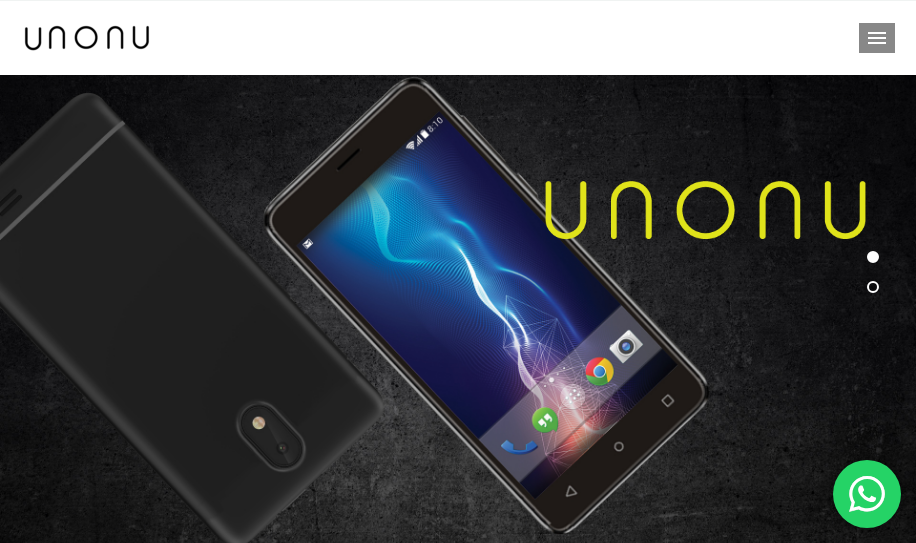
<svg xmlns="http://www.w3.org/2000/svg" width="916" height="543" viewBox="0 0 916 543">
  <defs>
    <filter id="blur1" x="-50%" y="-200%" width="200%" height="500%"><feGaussianBlur stdDeviation="5.5"/></filter>
  </defs>
  <rect width="100%" height="100%" fill="#f0f3f2"/>
  <rect x="0" y="1" width="916" height="74" fill="#ffffff"/>
  <image x="24" y="25" width="126" height="26" href="img1.png"/>
  <rect x="859" y="23" width="36" height="30" fill="#888888"/>
  <rect x="868" y="32" width="18" height="2" fill="#ffffff"/>
  <rect x="868" y="37" width="18" height="2" fill="#ffffff"/>
  <rect x="868" y="42" width="18" height="2" fill="#ffffff"/>
  <image x="0" y="75" width="916" height="468" href="img2.png"/>
  <image x="545" y="181" width="321" height="58" href="img3.png"/>
  <circle cx="873" cy="257" r="5" fill="#ffffff" stroke="#ffffff" stroke-width="2"/>
  <circle cx="873" cy="287" r="5" fill="none" stroke="#ffffff" stroke-width="2"/>
  <rect x="833" y="460" width="68" height="68" rx="34" fill="#000000" fill-opacity="0.5" filter="url(#blur1)"/>
  <circle cx="867" cy="494" r="34" fill="#25d366"/>
  <image x="849" y="476" width="36" height="36" href="img4.png"/>
</svg>
